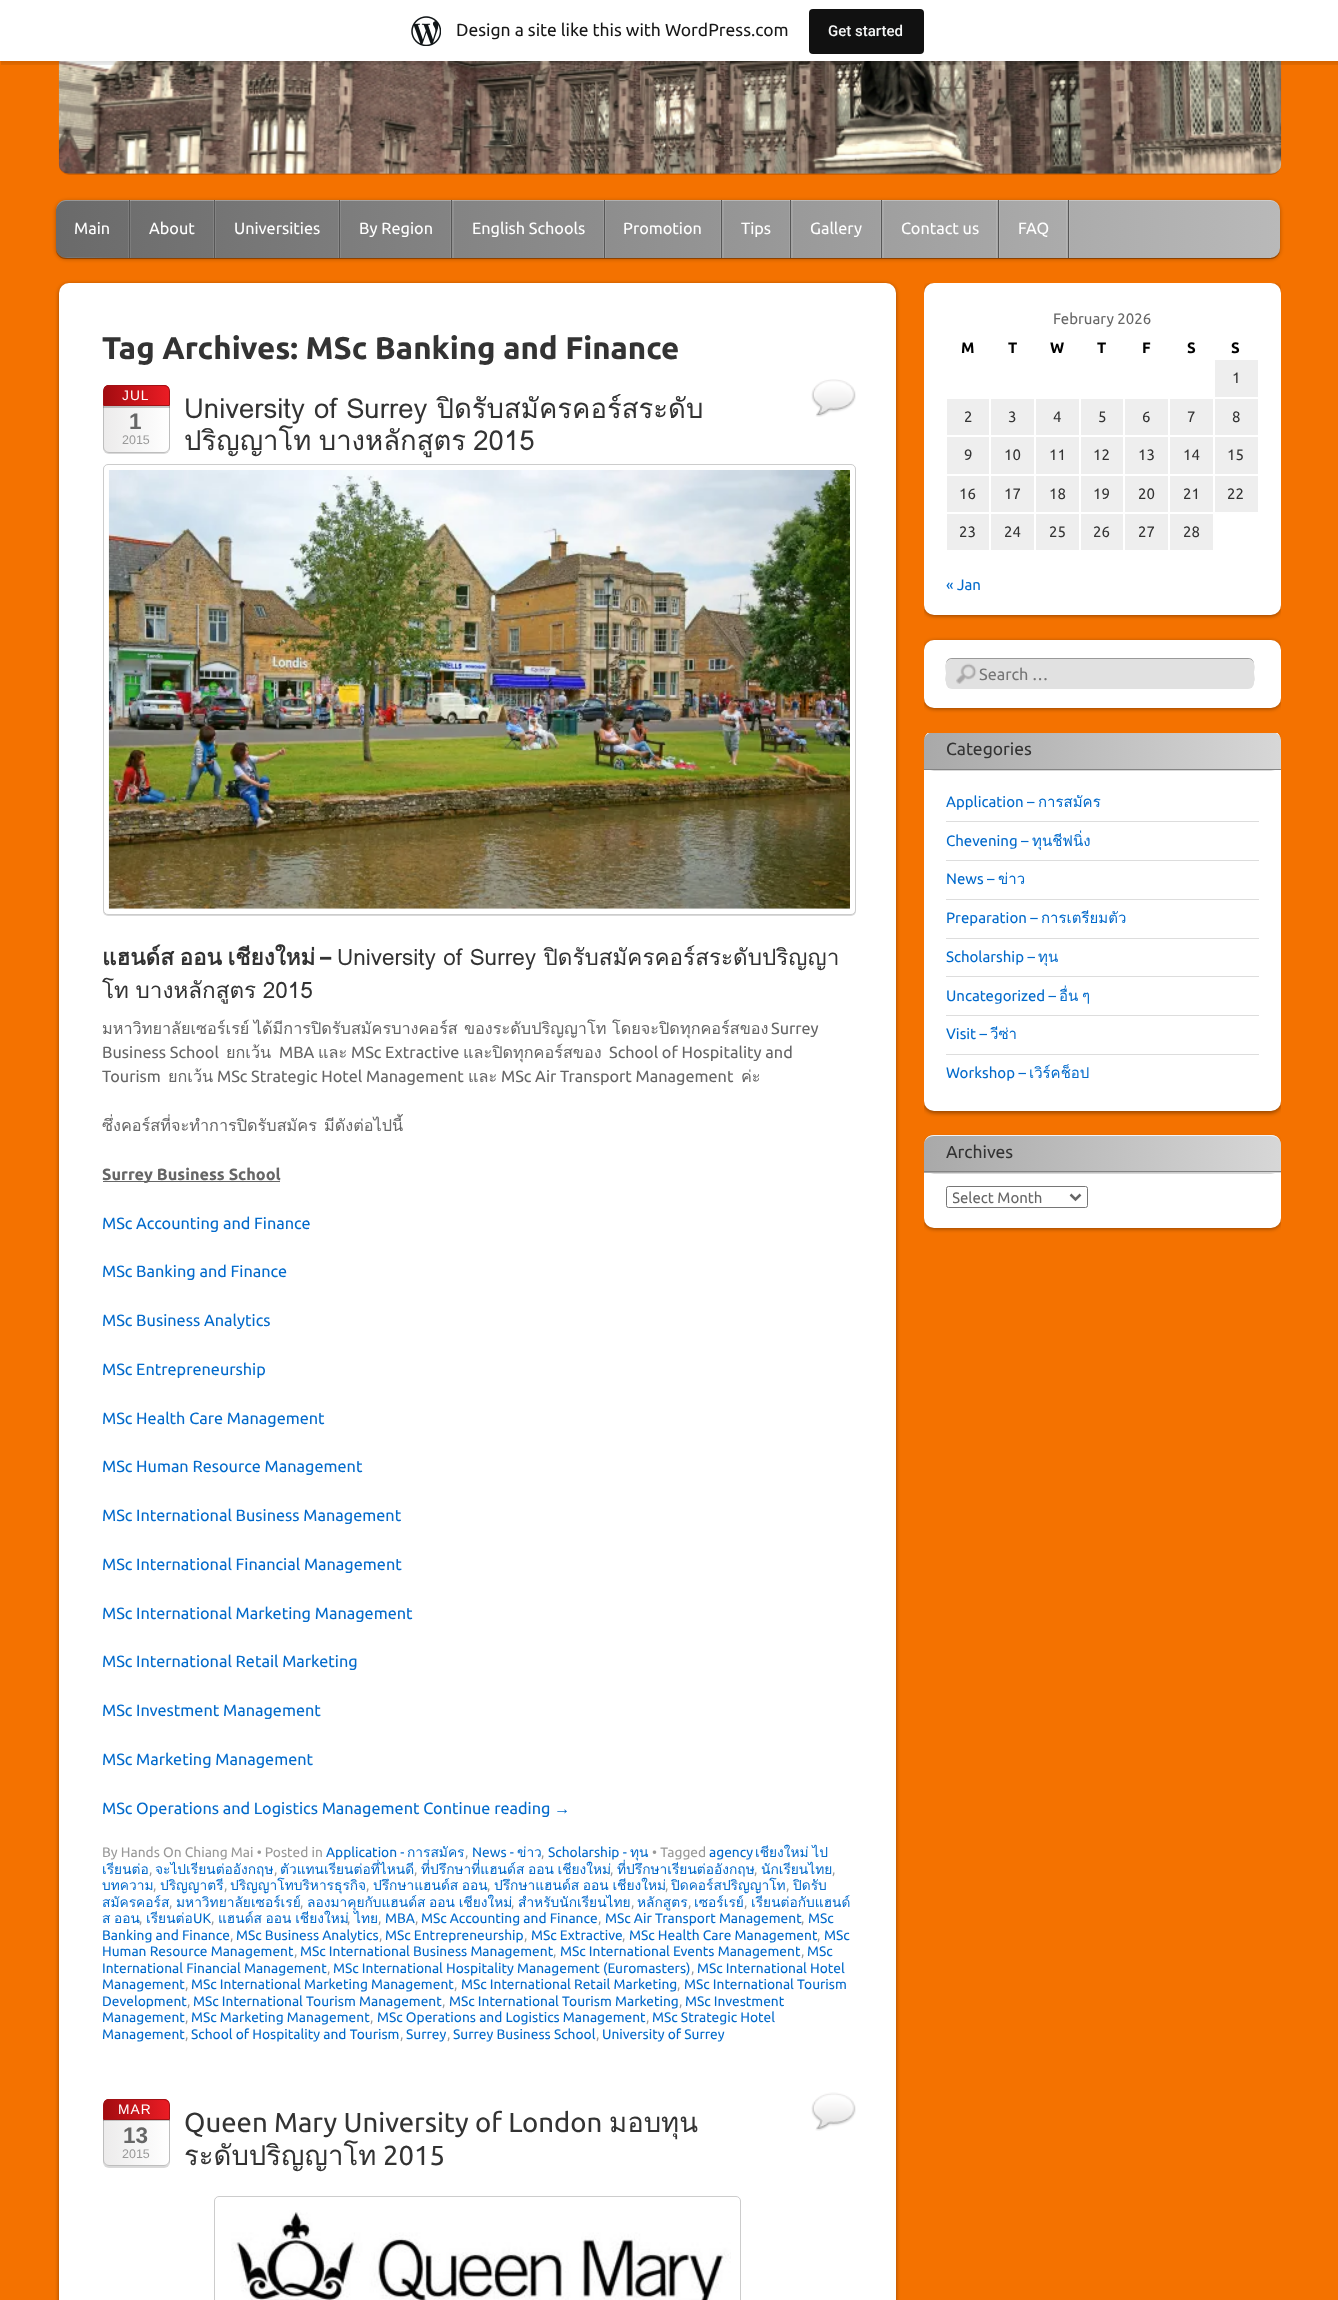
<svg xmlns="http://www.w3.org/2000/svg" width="1338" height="2300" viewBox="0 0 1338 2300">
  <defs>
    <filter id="blur1" x="-50%" y="-200%" width="200%" height="500%"><feGaussianBlur stdDeviation="0.5"/></filter>
    <filter id="blur2" x="-50%" y="-200%" width="200%" height="500%"><feGaussianBlur stdDeviation="1"/></filter>
    <filter id="blur3" x="-50%" y="-200%" width="200%" height="500%"><feGaussianBlur stdDeviation="2"/></filter>
    <linearGradient id="g1" gradientUnits="userSpaceOnUse" x1="1280" y1="229" x2="56" y2="229"><stop offset="0" stop-color="#b9b9b9"/><stop offset="1" stop-color="#6a6a6a"/></linearGradient>
    <clipPath id="clip1"><rect x="103" y="385" width="67" height="68" rx="6"/></clipPath>
    <linearGradient id="g2" gradientUnits="userSpaceOnUse" x1="169" y1="419" x2="104" y2="419"><stop offset="0" stop-color="#ffffff"/><stop offset="1" stop-color="#ecebeb"/></linearGradient>
    <clipPath id="clip2"><path d="M109 385H164C167.5 385 170 387.5 170 391V406H103V391C103 387.5 105.5 385 109 385Z"/></clipPath>
    <linearGradient id="g3" gradientUnits="userSpaceOnUse" x1="169" y1="396" x2="104" y2="396"><stop offset="0" stop-color="#eb1c24"/><stop offset="1" stop-color="#a30c10"/></linearGradient>
    <clipPath id="clip3"><rect x="103" y="2099" width="67" height="67" rx="6"/></clipPath>
    <linearGradient id="g4" gradientUnits="userSpaceOnUse" x1="169" y1="2133" x2="104" y2="2133"><stop offset="0" stop-color="#ffffff"/><stop offset="1" stop-color="#ecebeb"/></linearGradient>
    <clipPath id="clip4"><path d="M109 2099H164C167.5 2099 170 2101.5 170 2105V2120H103V2105C103 2101.5 105.5 2099 109 2099Z"/></clipPath>
    <linearGradient id="g5" gradientUnits="userSpaceOnUse" x1="169" y1="2109" x2="104" y2="2109"><stop offset="0" stop-color="#eb1c24"/><stop offset="1" stop-color="#a30c10"/></linearGradient>
    <clipPath id="clip5"><rect x="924" y="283" width="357" height="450"/></clipPath>
    <clipPath id="clip6"><rect x="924" y="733" width="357" height="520"/></clipPath>
    <clipPath id="clip7"><rect x="924" y="733" width="357" height="520"/></clipPath>
    <linearGradient id="g6" gradientUnits="userSpaceOnUse" x1="1281" y1="751" x2="924" y2="751"><stop offset="0" stop-color="#d7d7d7"/><stop offset="1" stop-color="#a9a9a9"/></linearGradient>
    <linearGradient id="g7" gradientUnits="userSpaceOnUse" x1="1281" y1="1154" x2="924" y2="1154"><stop offset="0" stop-color="#d7d7d7"/><stop offset="1" stop-color="#a9a9a9"/></linearGradient>
    <clipPath id="clip8"><rect x="953" y="1188" width="113" height="18"/></clipPath>
  </defs>
  <rect width="100%" height="100%" fill="#f47200"/>
  <rect x="59" y="-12" width="1222" height="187" rx="10" fill="#000000" fill-opacity="0.15" filter="url(#blur1)"/>
  <image x="58" y="61" width="1224" height="113" href="img2.png"/>
  <rect x="0" y="1" width="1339" height="62" fill="#000000" fill-opacity="0.05" filter="url(#blur2)"/>
  <path d="M1 61V65H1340V4H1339V61Z" fill="#000000" fill-opacity="0.08"/>
  <rect x="0" y="0" width="1338" height="61" fill="#ffffff"/>
  <image x="411" y="16" width="30" height="30" href="img1.png"/>
  <text x="456" y="36" font-family="Ubuntu" font-size="17.5" fill="#171717">Design a site like this with WordPress.com</text>
  <rect x="809" y="9" width="115" height="45" rx="4" fill="#111111"/>
  <text x="828" y="36" font-family="Roboto" font-size="15" font-weight="500" fill="#f6f7f7">Get started</text>
  <rect x="56" y="201" width="1224" height="58" rx="10" fill="#000000" fill-opacity="0.3" filter="url(#blur3)"/>
  <path d="M56 208V211V249C56 255 60 259 66 259H1270C1276 259 1280 255 1280 249V248C1280 253 1276 258 1270 258H66C61 258 56 253 56 248Z" fill="#000000" fill-opacity="0.3"/>
  <rect x="56" y="200" width="1224" height="58" rx="10" fill="url(#g1)"/>
  <path d="M66 201H1270C1276 201 1280 206 1280 211C1280 205 1276 200 1270 200H66C60 200 56 205 56 211C56 206 61 201 66 201Z" fill="#ffffff" fill-opacity="0.3"/>
  <path d="M64 257L68 258H131V200H130V258Z" fill="#ffffff" fill-opacity="0.1"/>
  <rect x="128" y="200" width="1" height="58" fill="#ffffff" fill-opacity="0.1"/>
  <rect x="129" y="200" width="1" height="58" fill="#575757"/>
  <text x="74" y="234" font-family="Ubuntu" font-size="16.25" fill="#ffffff">Main</text>
  <path d="M131 258H216V200H215V258Z" fill="#ffffff" fill-opacity="0.1"/>
  <rect x="213" y="200" width="1" height="58" fill="#ffffff" fill-opacity="0.1"/>
  <rect x="214" y="200" width="1" height="58" fill="#575757"/>
  <text x="149" y="234" font-family="Ubuntu" font-size="16.25" fill="#ffffff">About</text>
  <path d="M216 258H341V200H340V258Z" fill="#ffffff" fill-opacity="0.1"/>
  <rect x="338" y="200" width="1" height="58" fill="#ffffff" fill-opacity="0.1"/>
  <rect x="339" y="200" width="1" height="58" fill="#575757"/>
  <text x="234" y="234" font-family="Ubuntu" font-size="16.25" fill="#ffffff">Universities</text>
  <path d="M341 258H454V200H452V258Z" fill="#ffffff" fill-opacity="0.1"/>
  <rect x="450" y="200" width="1" height="58" fill="#ffffff" fill-opacity="0.1"/>
  <rect x="451" y="200" width="1" height="58" fill="#575757"/>
  <text x="359" y="234" font-family="Ubuntu" font-size="16.25" fill="#ffffff">By Region</text>
  <path d="M454 258H606V200H605V258Z" fill="#ffffff" fill-opacity="0.1"/>
  <rect x="603" y="200" width="1" height="58" fill="#ffffff" fill-opacity="0.1"/>
  <rect x="604" y="200" width="1" height="58" fill="#575757"/>
  <text x="472" y="234" font-family="Ubuntu" font-size="16.25" fill="#ffffff">English Schools</text>
  <path d="M606 258H724V200H722V258Z" fill="#ffffff" fill-opacity="0.1"/>
  <rect x="720" y="200" width="1" height="58" fill="#ffffff" fill-opacity="0.1"/>
  <rect x="721" y="200" width="1" height="58" fill="#575757"/>
  <text x="623" y="234" font-family="Ubuntu" font-size="16.25" fill="#ffffff">Promotion</text>
  <path d="M724 258H793V200H791V258Z" fill="#ffffff" fill-opacity="0.1"/>
  <rect x="789" y="200" width="1" height="58" fill="#ffffff" fill-opacity="0.1"/>
  <rect x="790" y="200" width="1" height="58" fill="#575757"/>
  <text x="741" y="234" font-family="Ubuntu" font-size="16.25" fill="#ffffff">Tips</text>
  <path d="M793 258H884V200H882V258Z" fill="#ffffff" fill-opacity="0.1"/>
  <rect x="880" y="200" width="1" height="58" fill="#ffffff" fill-opacity="0.1"/>
  <rect x="881" y="200" width="1" height="58" fill="#575757"/>
  <text x="810" y="234" font-family="Ubuntu" font-size="16.25" fill="#ffffff">Gallery</text>
  <path d="M884 258H1000V200H999V258Z" fill="#ffffff" fill-opacity="0.1"/>
  <rect x="996" y="200" width="1" height="58" fill="#ffffff" fill-opacity="0.1"/>
  <rect x="998" y="200" width="1" height="58" fill="#575757"/>
  <text x="901" y="234" font-family="Ubuntu" font-size="16.25" fill="#ffffff">Contact us</text>
  <path d="M1000 258H1070V200H1069V258Z" fill="#ffffff" fill-opacity="0.1"/>
  <rect x="1066" y="200" width="1" height="58" fill="#ffffff" fill-opacity="0.1"/>
  <rect x="1068" y="200" width="1" height="58" fill="#575757"/>
  <text x="1018" y="234" font-family="Ubuntu" font-size="16.25" fill="#ffffff">FAQ</text>
  <rect x="59" y="284" width="837" height="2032" rx="10" fill="#000000" fill-opacity="0.4" filter="url(#blur3)"/>
  <rect x="59" y="283" width="837" height="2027" rx="10" fill="#ffffff"/>
  <text x="102" y="359" font-family="Ubuntu" font-size="31.25" font-weight="bold" fill="#333333">Tag Archives: MSc Banking and Finance</text>
  <rect x="103" y="386" width="67" height="68" rx="6" fill="#000000" fill-opacity="0.15" filter="url(#blur1)"/>
  <g clip-path="url(#clip1)">
    <rect x="104" y="385" width="65" height="68" fill="url(#g2)"/>
  </g>
  <rect x="103.5" y="385.5" width="66" height="67" rx="5.5" fill="none" stroke="#bebebe"/>
  <rect x="103" y="406" width="67" height="2" fill="#000000" fill-opacity="0.2"/>
  <g clip-path="url(#clip2)">
    <rect x="104" y="385" width="65" height="20" fill="url(#g3)"/>
  </g>
  <path d="M109 385.5H164C167 385.5 169.5 388 169.5 391V405.5H103.5V391C103.5 388 106 385.5 109 385.5Z" fill="none" stroke="#a11216"/>
  <text x="122" y="400" font-family="Liberation Sans" font-size="13.75" letter-spacing="1" fill="#ffffff">JUL</text>
  <text x="129" y="429" font-family="Liberation Sans" font-size="22.5" font-weight="bold" fill="#666666">1</text>
  <text x="122" y="444" font-family="Liberation Sans" font-size="12.5" fill="#999999">2015</text>
  <text x="184" y="418" font-family="Loma" font-size="27.5" fill="#333333">University of Surrey ปิดรับสมัครคอร์สระดับ</text>
  <text x="184" y="450" word-spacing="-2" font-family="Loma" font-size="27.5" fill="#333333">ปริญญาโท บางหลักสูตร 2015</text>
  <rect x="103" y="465" width="753" height="451" rx="5" fill="#000000" fill-opacity="0.15" filter="url(#blur1)"/>
  <rect x="103.5" y="464.5" width="752" height="450" rx="4.5" fill="#ffffff" stroke="#cccccc"/>
  <image x="108" y="470" width="742" height="439" href="img3.png"/>
  <text x="102" y="965" word-spacing="-2" font-family="Loma" font-size="22.5" font-weight="bold" fill="#333333">แฮนด์ส ออน เชียงใหม่</text>
  <text x="320" y="965" font-family="Ubuntu" font-size="22.5" font-weight="bold" fill="#333333">–</text>
  <text x="337" y="965" font-family="Loma" font-size="22.5" fill="#333333">University of Surrey ปิดรับสมัครคอร์สระดับปริญญา</text>
  <text x="102" y="998" word-spacing="-1" font-family="Loma" font-size="22.5" fill="#333333">โท บางหลักสูตร 2015</text>
  <text x="102" y="1034" word-spacing="-1" font-family="Loma" font-size="16.25" fill="#666666">มหาวิทยาลัยเซอร์เรย์ ได้มีการปิดรับสมัครบางคอร์ส</text>
  <text x="464" y="1034" font-family="Loma" font-size="16.25" fill="#666666">ของระดับปริญญาโท</text>
  <text x="612" y="1034" font-family="Loma" font-size="16.25" fill="#666666">โดยจะปิดทุกคอร์สของ</text>
  <text x="771" y="1034" font-family="Ubuntu" font-size="16.25" fill="#666666">Surrey</text>
  <text x="102" y="1058" font-family="Ubuntu" font-size="16.25" fill="#666666">Business School</text>
  <text x="226" y="1058" font-family="Loma" font-size="16.25" fill="#666666">ยกเว้น</text>
  <text x="279" y="1058" font-family="Ubuntu" font-size="16.25" fill="#666666">MBA</text>
  <text x="318" y="1058" font-family="Loma" font-size="16.25" fill="#666666">และ</text>
  <text x="351" y="1058" font-family="Ubuntu" font-size="16.25" fill="#666666">MSc Extractive</text>
  <text x="463" y="1058" font-family="Loma" font-size="16.25" fill="#666666">และปิดทุกคอร์สของ</text>
  <text x="609" y="1058" font-family="Ubuntu" font-size="16.25" fill="#666666">School of Hospitality and</text>
  <text x="102" y="1082" font-family="Ubuntu" font-size="16.25" fill="#666666">Tourism</text>
  <text x="168" y="1082" font-family="Loma" font-size="16.25" fill="#666666">ยกเว้น</text>
  <text x="217" y="1082" font-family="Ubuntu" font-size="16.25" fill="#666666">MSc Strategic Hotel Management</text>
  <text x="468" y="1082" font-family="Loma" font-size="16.25" fill="#666666">และ</text>
  <text x="501" y="1082" font-family="Ubuntu" font-size="16.25" fill="#666666">MSc Air Transport Management</text>
  <text x="741" y="1082" font-family="Loma" font-size="16.25" fill="#666666">ค่ะ</text>
  <text x="102" y="1131" font-family="Loma" font-size="16.25" fill="#666666">ซึ่งคอร์สที่จะทำการปิดรับสมัคร</text>
  <text x="324" y="1131" font-family="Loma" font-size="16.25" fill="#666666">มีดังต่อไปนี้</text>
  <rect x="103" y="1181" width="177" height="1" fill="#666666"/>
  <text x="102" y="1180" font-family="Ubuntu" font-size="16.25" font-weight="bold" fill="#666666">Surrey Business School</text>
  <text x="102" y="1229" font-family="Ubuntu" font-size="16.25" fill="#026acb">MSc Accounting and Finance</text>
  <text x="102" y="1277" font-family="Ubuntu" font-size="16.25" fill="#026acb">MSc Banking and Finance</text>
  <text x="102" y="1326" font-family="Ubuntu" font-size="16.25" fill="#026acb">MSc Business Analytics</text>
  <text x="102" y="1375" font-family="Ubuntu" font-size="16.25" fill="#026acb">MSc Entrepreneurship</text>
  <text x="102" y="1424" font-family="Ubuntu" font-size="16.25" fill="#026acb">MSc Health Care Management</text>
  <text x="102" y="1472" font-family="Ubuntu" font-size="16.25" fill="#026acb">MSc Human Resource Management</text>
  <text x="102" y="1521" font-family="Ubuntu" font-size="16.25" fill="#026acb">MSc International Business Management</text>
  <text x="102" y="1570" font-family="Ubuntu" font-size="16.25" fill="#026acb">MSc International Financial Management</text>
  <text x="102" y="1619" font-family="Ubuntu" font-size="16.25" fill="#026acb">MSc International Marketing Management</text>
  <text x="102" y="1667" font-family="Ubuntu" font-size="16.25" fill="#026acb">MSc International Retail Marketing</text>
  <text x="102" y="1716" font-family="Ubuntu" font-size="16.25" fill="#026acb">MSc Investment Management</text>
  <text x="102" y="1765" font-family="Ubuntu" font-size="16.25" fill="#026acb">MSc Marketing Management</text>
  <text x="102" y="1814" font-family="Ubuntu" font-size="16.25" fill="#026acb">MSc Operations and Logistics Management Continue reading</text>
  <text x="554" y="1814" font-family="Liberation Sans" font-size="16.25" fill="#026acb">→</text>
  <image x="811" y="379" width="45" height="38" href="img4.png"/>
  <text x="102" y="1857" font-family="Ubuntu" font-size="13.75" fill="#999999">By Hands On Chiang Mai • Posted in</text>
  <text x="326" y="1857" font-family="Ubuntu" font-size="13.75" fill="#026acb">Application -</text>
  <text x="407" y="1857" font-family="Loma" font-size="13.75" fill="#026acb">การสมัคร</text>
  <text x="465" y="1857" font-family="Ubuntu" font-size="13.75" fill="#999999">,</text>
  <text x="472" y="1857" font-family="Ubuntu" font-size="13.75" fill="#026acb">News -</text>
  <text x="517" y="1857" font-family="Loma" font-size="13.75" fill="#026acb">ข่าว</text>
  <text x="541" y="1857" font-family="Ubuntu" font-size="13.75" fill="#999999">,</text>
  <text x="548" y="1857" font-family="Ubuntu" font-size="13.75" fill="#026acb">Scholarship -</text>
  <text x="630" y="1857" font-family="Loma" font-size="13.75" fill="#026acb">ทุน</text>
  <text x="652" y="1857" font-family="Ubuntu" font-size="13.75" fill="#999999">• Tagged</text>
  <text x="709" y="1857" font-family="Ubuntu" font-size="13.75" fill="#026acb">agency</text>
  <text x="755" y="1857" word-spacing="-1" font-family="Loma" font-size="13.75" fill="#026acb">เชียงใหม่ ไป</text>
  <text x="102" y="1874" font-family="Loma" font-size="13.75" fill="#026acb">เรียนต่อ</text>
  <text x="149" y="1874" font-family="Ubuntu" font-size="13.75" fill="#999999">,</text>
  <text x="155" y="1874" font-family="Loma" font-size="13.75" fill="#026acb">จะไปเรียนต่ออังกฤษ</text>
  <text x="274" y="1874" font-family="Ubuntu" font-size="13.75" fill="#999999">,</text>
  <text x="280" y="1874" font-family="Loma" font-size="13.75" fill="#026acb">ตัวแทนเรียนต่อที่ไหนดี</text>
  <text x="414" y="1874" font-family="Ubuntu" font-size="13.75" fill="#999999">,</text>
  <text x="421" y="1874" word-spacing="-1" font-family="Loma" font-size="13.75" fill="#026acb">ที่ปรึกษาที่แฮนด์ส ออน เชียงใหม่</text>
  <text x="610" y="1874" font-family="Ubuntu" font-size="13.75" fill="#999999">,</text>
  <text x="617" y="1874" font-family="Loma" font-size="13.75" fill="#026acb">ที่ปรึกษาเรียนต่ออังกฤษ</text>
  <text x="754" y="1874" font-family="Ubuntu" font-size="13.75" fill="#999999">,</text>
  <text x="761" y="1874" font-family="Loma" font-size="13.75" fill="#026acb">นักเรียนไทย</text>
  <text x="832" y="1874" font-family="Ubuntu" font-size="13.75" fill="#999999">,</text>
  <text x="102" y="1890" font-family="Loma" font-size="13.75" fill="#026acb">บทความ</text>
  <text x="153" y="1890" font-family="Ubuntu" font-size="13.75" fill="#999999">,</text>
  <text x="160" y="1890" font-family="Loma" font-size="13.75" fill="#026acb">ปริญญาตรี</text>
  <text x="224" y="1890" font-family="Ubuntu" font-size="13.75" fill="#999999">,</text>
  <text x="230" y="1890" font-family="Loma" font-size="13.75" fill="#026acb">ปริญญาโทบริหารธุรกิจ</text>
  <text x="366" y="1890" font-family="Ubuntu" font-size="13.75" fill="#999999">,</text>
  <text x="373" y="1890" word-spacing="-1" font-family="Loma" font-size="13.75" fill="#026acb">ปรึกษาแฮนด์ส ออน</text>
  <text x="487" y="1890" font-family="Ubuntu" font-size="13.75" fill="#999999">,</text>
  <text x="494" y="1890" word-spacing="-1" font-family="Loma" font-size="13.75" fill="#026acb">ปรึกษาแฮนด์ส ออน เชียงใหม่</text>
  <text x="665" y="1890" font-family="Ubuntu" font-size="13.75" fill="#999999">,</text>
  <text x="671" y="1890" font-family="Loma" font-size="13.75" fill="#026acb">ปิดคอร์สปริญญาโท</text>
  <text x="786" y="1890" font-family="Ubuntu" font-size="13.75" fill="#999999">,</text>
  <text x="793" y="1890" font-family="Loma" font-size="13.75" fill="#026acb">ปิดรับ</text>
  <text x="102" y="1907" font-family="Loma" font-size="13.75" fill="#026acb">สมัครคอร์ส</text>
  <text x="169" y="1907" font-family="Ubuntu" font-size="13.75" fill="#999999">,</text>
  <text x="176" y="1907" font-family="Loma" font-size="13.75" fill="#026acb">มหาวิทยาลัยเซอร์เรย์</text>
  <text x="300" y="1907" font-family="Ubuntu" font-size="13.75" fill="#999999">,</text>
  <text x="307" y="1907" word-spacing="-1" font-family="Loma" font-size="13.75" fill="#026acb">ลองมาคุยกับแฮนด์ส ออน เชียงใหม่</text>
  <text x="511" y="1907" font-family="Ubuntu" font-size="13.75" fill="#999999">,</text>
  <text x="518" y="1907" font-family="Loma" font-size="13.75" fill="#026acb">สำหรับนักเรียนไทย</text>
  <text x="631" y="1907" font-family="Ubuntu" font-size="13.75" fill="#999999">,</text>
  <text x="637" y="1907" font-family="Loma" font-size="13.75" fill="#026acb">หลักสูตร</text>
  <text x="688" y="1907" font-family="Ubuntu" font-size="13.75" fill="#999999">,</text>
  <text x="694" y="1907" font-family="Loma" font-size="13.75" fill="#026acb">เซอร์เรย์</text>
  <text x="744" y="1907" font-family="Ubuntu" font-size="13.75" fill="#999999">,</text>
  <text x="751" y="1907" font-family="Loma" font-size="13.75" fill="#026acb">เรียนต่อกับแฮนด์</text>
  <text x="102" y="1923" word-spacing="-1" font-family="Loma" font-size="13.75" fill="#026acb">ส ออน</text>
  <text x="139" y="1923" font-family="Ubuntu" font-size="13.75" fill="#999999">,</text>
  <text x="146" y="1923" font-family="Loma" font-size="13.75" fill="#026acb">เรียนต่อ</text>
  <text x="193" y="1923" font-family="Ubuntu" font-size="13.75" fill="#026acb">UK</text>
  <text x="211" y="1923" font-family="Ubuntu" font-size="13.75" fill="#999999">,</text>
  <text x="218" y="1923" word-spacing="-1" font-family="Loma" font-size="13.75" fill="#026acb">แฮนด์ส ออน เชียงใหม่</text>
  <text x="347" y="1923" font-family="Ubuntu" font-size="13.75" fill="#999999">,</text>
  <text x="354" y="1923" font-family="Loma" font-size="13.75" fill="#026acb">ไทย</text>
  <text x="378" y="1923" font-family="Ubuntu" font-size="13.75" fill="#999999">,</text>
  <text x="385" y="1923" font-family="Ubuntu" font-size="13.75" fill="#026acb">MBA</text>
  <text x="415" y="1923" font-family="Ubuntu" font-size="13.75" fill="#999999">,</text>
  <text x="421" y="1923" font-family="Ubuntu" font-size="13.75" fill="#026acb">MSc Accounting and Finance</text>
  <text x="598" y="1923" font-family="Ubuntu" font-size="13.75" fill="#999999">,</text>
  <text x="605" y="1923" font-family="Ubuntu" font-size="13.75" fill="#026acb">MSc Air Transport Management</text>
  <text x="801" y="1923" font-family="Ubuntu" font-size="13.75" fill="#999999">,</text>
  <text x="808" y="1923" font-family="Ubuntu" font-size="13.75" fill="#026acb">MSc</text>
  <text x="102" y="1940" font-family="Ubuntu" font-size="13.75" fill="#026acb">Banking and Finance</text>
  <text x="230" y="1940" font-family="Ubuntu" font-size="13.75" fill="#999999">,</text>
  <text x="236" y="1940" font-family="Ubuntu" font-size="13.75" fill="#026acb">MSc Business Analytics</text>
  <text x="379" y="1940" font-family="Ubuntu" font-size="13.75" fill="#999999">,</text>
  <text x="385" y="1940" font-family="Ubuntu" font-size="13.75" fill="#026acb">MSc Entrepreneurship</text>
  <text x="524" y="1940" font-family="Ubuntu" font-size="13.75" fill="#999999">,</text>
  <text x="531" y="1940" font-family="Ubuntu" font-size="13.75" fill="#026acb">MSc Extractive</text>
  <text x="622" y="1940" font-family="Ubuntu" font-size="13.75" fill="#999999">,</text>
  <text x="629" y="1940" font-family="Ubuntu" font-size="13.75" fill="#026acb">MSc Health Care Management</text>
  <text x="817" y="1940" font-family="Ubuntu" font-size="13.75" fill="#999999">,</text>
  <text x="824" y="1940" font-family="Ubuntu" font-size="13.75" fill="#026acb">MSc</text>
  <text x="102" y="1956" font-family="Ubuntu" font-size="13.75" fill="#026acb">Human Resource Management</text>
  <text x="294" y="1956" font-family="Ubuntu" font-size="13.75" fill="#999999">,</text>
  <text x="300" y="1956" font-family="Ubuntu" font-size="13.75" fill="#026acb">MSc International Business Management</text>
  <text x="553" y="1956" font-family="Ubuntu" font-size="13.75" fill="#999999">,</text>
  <text x="560" y="1956" font-family="Ubuntu" font-size="13.75" fill="#026acb">MSc International Events Management</text>
  <text x="801" y="1956" font-family="Ubuntu" font-size="13.75" fill="#999999">,</text>
  <text x="807" y="1956" font-family="Ubuntu" font-size="13.75" fill="#026acb">MSc</text>
  <text x="102" y="1973" font-family="Ubuntu" font-size="13.75" fill="#026acb">International Financial Management</text>
  <text x="327" y="1973" font-family="Ubuntu" font-size="13.75" fill="#999999">,</text>
  <text x="333" y="1973" font-family="Ubuntu" font-size="13.75" fill="#026acb">MSc International Hospitality Management (Euromasters)</text>
  <text x="691" y="1973" font-family="Ubuntu" font-size="13.75" fill="#999999">,</text>
  <text x="697" y="1973" font-family="Ubuntu" font-size="13.75" fill="#026acb">MSc International Hotel</text>
  <text x="102" y="1989" font-family="Ubuntu" font-size="13.75" fill="#026acb">Management</text>
  <text x="185" y="1989" font-family="Ubuntu" font-size="13.75" fill="#999999">,</text>
  <text x="191" y="1989" font-family="Ubuntu" font-size="13.75" fill="#026acb">MSc International Marketing Management</text>
  <text x="454" y="1989" font-family="Ubuntu" font-size="13.75" fill="#999999">,</text>
  <text x="461" y="1989" font-family="Ubuntu" font-size="13.75" fill="#026acb">MSc International Retail Marketing</text>
  <text x="677" y="1989" font-family="Ubuntu" font-size="13.75" fill="#999999">,</text>
  <text x="684" y="1989" font-family="Ubuntu" font-size="13.75" fill="#026acb">MSc International Tourism</text>
  <text x="102" y="2006" font-family="Ubuntu" font-size="13.75" fill="#026acb">Development</text>
  <text x="187" y="2006" font-family="Ubuntu" font-size="13.75" fill="#999999">,</text>
  <text x="193" y="2006" font-family="Ubuntu" font-size="13.75" fill="#026acb">MSc International Tourism Management</text>
  <text x="442" y="2006" font-family="Ubuntu" font-size="13.75" fill="#999999">,</text>
  <text x="449" y="2006" font-family="Ubuntu" font-size="13.75" fill="#026acb">MSc International Tourism Marketing</text>
  <text x="679" y="2006" font-family="Ubuntu" font-size="13.75" fill="#999999">,</text>
  <text x="685" y="2006" font-family="Ubuntu" font-size="13.75" fill="#026acb">MSc Investment</text>
  <text x="102" y="2022" font-family="Ubuntu" font-size="13.75" fill="#026acb">Management</text>
  <text x="185" y="2022" font-family="Ubuntu" font-size="13.75" fill="#999999">,</text>
  <text x="191" y="2022" font-family="Ubuntu" font-size="13.75" fill="#026acb">MSc Marketing Management</text>
  <text x="370" y="2022" font-family="Ubuntu" font-size="13.75" fill="#999999">,</text>
  <text x="377" y="2022" font-family="Ubuntu" font-size="13.75" fill="#026acb">MSc Operations and Logistics Management</text>
  <text x="646" y="2022" font-family="Ubuntu" font-size="13.75" fill="#999999">,</text>
  <text x="652" y="2022" font-family="Ubuntu" font-size="13.75" fill="#026acb">MSc Strategic Hotel</text>
  <text x="102" y="2039" font-family="Ubuntu" font-size="13.75" fill="#026acb">Management</text>
  <text x="185" y="2039" font-family="Ubuntu" font-size="13.75" fill="#999999">,</text>
  <text x="191" y="2039" font-family="Ubuntu" font-size="13.75" fill="#026acb">School of Hospitality and Tourism</text>
  <text x="400" y="2039" font-family="Ubuntu" font-size="13.75" fill="#999999">,</text>
  <text x="406" y="2039" font-family="Ubuntu" font-size="13.75" fill="#026acb">Surrey</text>
  <text x="447" y="2039" font-family="Ubuntu" font-size="13.75" fill="#999999">,</text>
  <text x="453" y="2039" font-family="Ubuntu" font-size="13.75" fill="#026acb">Surrey Business School</text>
  <text x="596" y="2039" font-family="Ubuntu" font-size="13.75" fill="#999999">,</text>
  <text x="602" y="2039" font-family="Ubuntu" font-size="13.75" fill="#026acb">University of Surrey</text>
  <rect x="103" y="2100" width="67" height="68" rx="6" fill="#000000" fill-opacity="0.15" filter="url(#blur1)"/>
  <g clip-path="url(#clip3)">
    <rect x="104" y="2099" width="65" height="67" fill="url(#g4)"/>
  </g>
  <rect x="103.5" y="2099.5" width="66" height="66" rx="5.5" fill="none" stroke="#bebebe"/>
  <rect x="103" y="2120" width="67" height="1" fill="#000000" fill-opacity="0.2"/>
  <g clip-path="url(#clip4)">
    <rect x="104" y="2099" width="65" height="20" fill="url(#g5)"/>
  </g>
  <path d="M109 2099.5H164C167 2099.5 169.5 2102 169.5 2105V2119.5H103.5V2105C103.5 2102 106 2099.5 109 2099.5Z" fill="none" stroke="#a11216"/>
  <text x="118" y="2114" font-family="Liberation Sans" font-size="13.75" letter-spacing="1" fill="#ffffff">MAR</text>
  <text x="123" y="2143" font-family="Liberation Sans" font-size="22.5" font-weight="bold" fill="#666666">13</text>
  <text x="122" y="2158" font-family="Liberation Sans" font-size="12.5" fill="#999999">2015</text>
  <text x="184" y="2132" font-family="Ubuntu" font-size="27.5" fill="#333333">Queen Mary University of London</text>
  <text x="609" y="2132" font-family="Loma" font-size="27.5" fill="#333333">มอบทุน</text>
  <text x="184" y="2165" font-family="Loma" font-size="27.5" fill="#333333">ระดับปริญญาโท</text>
  <text x="383" y="2165" font-family="Ubuntu" font-size="27.5" fill="#333333">2015</text>
  <image x="811" y="2092" width="45" height="39" href="img5.png"/>
  <rect x="214.5" y="2196.5" width="526" height="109" rx="4.5" fill="none" stroke="#cccccc"/>
  <image x="231" y="2210" width="500" height="90" href="img6.png"/>
  <g clip-path="url(#clip5)">
    <rect x="924" y="284" width="357" height="332" rx="10" fill="#000000" fill-opacity="0.4" filter="url(#blur3)"/>
  </g>
  <rect x="924" y="283" width="357" height="332" rx="10" fill="#ffffff"/>
  <text x="1053" y="324" font-family="Ubuntu" font-size="15" fill="#666666">February 2026</text>
  <text x="961" y="353" font-family="Ubuntu" font-size="15" font-weight="bold" fill="#000000">M</text>
  <text x="1008" y="353" font-family="Ubuntu" font-size="15" font-weight="bold" fill="#000000">T</text>
  <text x="1050" y="353" font-family="Ubuntu" font-size="15" font-weight="bold" fill="#000000">W</text>
  <text x="1097" y="353" font-family="Ubuntu" font-size="15" font-weight="bold" fill="#000000">T</text>
  <text x="1142" y="353" font-family="Ubuntu" font-size="15" font-weight="bold" fill="#000000">F</text>
  <text x="1187" y="353" font-family="Ubuntu" font-size="15" font-weight="bold" fill="#000000">S</text>
  <text x="1231" y="353" font-family="Ubuntu" font-size="15" font-weight="bold" fill="#000000">S</text>
  <rect x="1215" y="360" width="43" height="37" fill="#eeeeee"/>
  <text x="1232" y="383" font-family="Ubuntu" font-size="15" fill="#333333">1</text>
  <rect x="947" y="399" width="42" height="36" fill="#eeeeee"/>
  <text x="964" y="422" font-family="Ubuntu" font-size="15" fill="#333333">2</text>
  <rect x="991" y="399" width="43" height="36" fill="#eeeeee"/>
  <text x="1008" y="422" font-family="Ubuntu" font-size="15" fill="#333333">3</text>
  <rect x="1036" y="399" width="43" height="36" fill="#eeeeee"/>
  <text x="1053" y="422" font-family="Ubuntu" font-size="15" fill="#333333">4</text>
  <rect x="1081" y="399" width="42" height="36" fill="#eeeeee"/>
  <text x="1098" y="422" font-family="Ubuntu" font-size="15" fill="#333333">5</text>
  <rect x="1125" y="399" width="43" height="36" fill="#eeeeee"/>
  <text x="1142" y="422" font-family="Ubuntu" font-size="15" fill="#333333">6</text>
  <rect x="1170" y="399" width="43" height="36" fill="#eeeeee"/>
  <text x="1187" y="422" font-family="Ubuntu" font-size="15" fill="#333333">7</text>
  <rect x="1215" y="399" width="43" height="36" fill="#eeeeee"/>
  <text x="1232" y="422" font-family="Ubuntu" font-size="15" fill="#333333">8</text>
  <rect x="947" y="437" width="42" height="37" fill="#eeeeee"/>
  <text x="964" y="460" font-family="Ubuntu" font-size="15" fill="#333333">9</text>
  <rect x="991" y="437" width="43" height="37" fill="#eeeeee"/>
  <text x="1004" y="460" font-family="Ubuntu" font-size="15" fill="#333333">10</text>
  <rect x="1036" y="437" width="43" height="37" fill="#eeeeee"/>
  <text x="1049" y="460" font-family="Ubuntu" font-size="15" fill="#333333">11</text>
  <rect x="1081" y="437" width="42" height="37" fill="#eeeeee"/>
  <text x="1093" y="460" font-family="Ubuntu" font-size="15" fill="#333333">12</text>
  <rect x="1125" y="437" width="43" height="37" fill="#eeeeee"/>
  <text x="1138" y="460" font-family="Ubuntu" font-size="15" fill="#333333">13</text>
  <rect x="1170" y="437" width="43" height="37" fill="#eeeeee"/>
  <text x="1183" y="460" font-family="Ubuntu" font-size="15" fill="#333333">14</text>
  <rect x="1215" y="437" width="43" height="37" fill="#eeeeee"/>
  <text x="1227" y="460" font-family="Ubuntu" font-size="15" fill="#333333">15</text>
  <rect x="947" y="476" width="42" height="36" fill="#eeeeee"/>
  <text x="959" y="499" font-family="Ubuntu" font-size="15" fill="#333333">16</text>
  <rect x="991" y="476" width="43" height="36" fill="#eeeeee"/>
  <text x="1004" y="499" font-family="Ubuntu" font-size="15" fill="#333333">17</text>
  <rect x="1036" y="476" width="43" height="36" fill="#eeeeee"/>
  <text x="1049" y="499" font-family="Ubuntu" font-size="15" fill="#333333">18</text>
  <rect x="1081" y="476" width="42" height="36" fill="#eeeeee"/>
  <text x="1093" y="499" font-family="Ubuntu" font-size="15" fill="#333333">19</text>
  <rect x="1125" y="476" width="43" height="36" fill="#eeeeee"/>
  <text x="1138" y="499" font-family="Ubuntu" font-size="15" fill="#333333">20</text>
  <rect x="1170" y="476" width="43" height="36" fill="#eeeeee"/>
  <text x="1183" y="499" font-family="Ubuntu" font-size="15" fill="#333333">21</text>
  <rect x="1215" y="476" width="43" height="36" fill="#eeeeee"/>
  <text x="1227" y="499" font-family="Ubuntu" font-size="15" fill="#333333">22</text>
  <rect x="947" y="514" width="42" height="36" fill="#eeeeee"/>
  <text x="959" y="537" font-family="Ubuntu" font-size="15" fill="#333333">23</text>
  <rect x="991" y="514" width="43" height="36" fill="#eeeeee"/>
  <text x="1004" y="537" font-family="Ubuntu" font-size="15" fill="#333333">24</text>
  <rect x="1036" y="514" width="43" height="36" fill="#eeeeee"/>
  <text x="1049" y="537" font-family="Ubuntu" font-size="15" fill="#333333">25</text>
  <rect x="1081" y="514" width="42" height="36" fill="#eeeeee"/>
  <text x="1093" y="537" font-family="Ubuntu" font-size="15" fill="#333333">26</text>
  <rect x="1125" y="514" width="43" height="36" fill="#eeeeee"/>
  <text x="1138" y="537" font-family="Ubuntu" font-size="15" fill="#333333">27</text>
  <rect x="1170" y="514" width="43" height="36" fill="#eeeeee"/>
  <text x="1183" y="537" font-family="Ubuntu" font-size="15" fill="#333333">28</text>
  <text x="946" y="590" font-family="Ubuntu" font-size="15" fill="#026acb">« Jan</text>
  <g clip-path="url(#clip5)">
    <rect x="924" y="641" width="357" height="68" rx="10" fill="#000000" fill-opacity="0.4" filter="url(#blur3)"/>
  </g>
  <rect x="924" y="640" width="357" height="68" rx="10" fill="#ffffff"/>
  <path d="M952 658C944 658 946 668 946 673C946 677 945 681 947 685L946 682V665C946 662 949 659 952 659H1248C1251 659 1254 662 1254 665V682L1253 685C1255 681 1254 677 1254 673C1254 668 1256 658 1248 658Z" fill="#999999"/>
  <rect x="946" y="659" width="308" height="30" rx="6" fill="#e1e1e1"/>
  <image x="956" y="663" width="21" height="21" href="img7.png"/>
  <text x="979" y="680" font-family="Ubuntu" font-size="16.25" fill="#757575">Search …</text>
  <g clip-path="url(#clip6)">
    <rect x="924" y="734" width="357" height="379" rx="10" fill="#000000" fill-opacity="0.4" filter="url(#blur3)"/>
  </g>
  <rect x="924" y="733" width="357" height="378" rx="10" fill="#ffffff"/>
  <rect x="924" y="733" width="357" height="38" rx="10" fill="#000000" fill-opacity="0.15" filter="url(#blur1)"/>
  <g clip-path="url(#clip7)">
    <path d="M934 731H1271C1276.5 731 1281 735.5 1281 741V770H924V741C924 735.5 928.5 731 934 731Z" fill="url(#g6)"/>
    <path d="M934 732H1271C1277 732 1281 736 1281 741C1281 736 1278 732 1273 731H932C927 732 924 736 924 741C924 736 928 732 934 732Z" fill="#f5f5f5"/>
  </g>
  <rect x="924" y="769" width="357" height="1" fill="#848484"/>
  <text x="946" y="755" font-family="Ubuntu" font-size="17.5" fill="#333333">Categories</text>
  <rect x="946" y="821" width="313" height="1" fill="#dddddd"/>
  <text x="946" y="807" font-family="Ubuntu" font-size="15" fill="#026acb">Application –</text>
  <text x="1038" y="807" font-family="Loma" font-size="15" fill="#026acb">การสมัคร</text>
  <rect x="946" y="860" width="313" height="1" fill="#dddddd"/>
  <text x="946" y="846" font-family="Ubuntu" font-size="15" fill="#026acb">Chevening –</text>
  <text x="1032" y="846" font-family="Loma" font-size="15" fill="#026acb">ทุนชีฟนิ่ง</text>
  <rect x="946" y="899" width="313" height="1" fill="#dddddd"/>
  <text x="946" y="884" font-family="Ubuntu" font-size="15" fill="#026acb">News –</text>
  <text x="998" y="884" font-family="Loma" font-size="15" fill="#026acb">ข่าว</text>
  <rect x="946" y="938" width="313" height="1" fill="#dddddd"/>
  <text x="946" y="923" font-family="Ubuntu" font-size="15" fill="#026acb">Preparation –</text>
  <text x="1041" y="923" font-family="Loma" font-size="15" fill="#026acb">การเตรียมตัว</text>
  <rect x="946" y="976" width="313" height="1" fill="#dddddd"/>
  <text x="946" y="962" font-family="Ubuntu" font-size="15" fill="#026acb">Scholarship –</text>
  <text x="1038" y="962" font-family="Loma" font-size="15" fill="#026acb">ทุน</text>
  <rect x="946" y="1015" width="313" height="1" fill="#dddddd"/>
  <text x="946" y="1001" font-family="Ubuntu" font-size="15" fill="#026acb">Uncategorized –</text>
  <text x="1059" y="1001" font-family="Loma" font-size="15" fill="#026acb">อื่น</text>
  <text x="1082" y="1001" font-family="Loma" font-size="15" fill="#026acb">ๆ</text>
  <rect x="946" y="1054" width="313" height="1" fill="#dddddd"/>
  <text x="946" y="1039" font-family="Ubuntu" font-size="15" fill="#026acb">Visit –</text>
  <text x="990" y="1039" font-family="Loma" font-size="15" fill="#026acb">วีซ่า</text>
  <text x="946" y="1078" font-family="Ubuntu" font-size="15" fill="#026acb">Workshop –</text>
  <text x="1029" y="1078" font-family="Loma" font-size="15" fill="#026acb">เวิร์คช็อป</text>
  <g clip-path="url(#clip6)">
    <rect x="924" y="1138" width="357" height="91" rx="10" fill="#000000" fill-opacity="0.4" filter="url(#blur3)"/>
  </g>
  <rect x="924" y="1136" width="357" height="92" rx="10" fill="#ffffff"/>
  <rect x="924" y="1136" width="357" height="38" rx="10" fill="#000000" fill-opacity="0.15" filter="url(#blur1)"/>
  <path d="M934 1135H1271C1276.5 1135 1281 1139.5 1281 1145V1173H924V1145C924 1139.5 928.5 1135 934 1135Z" fill="url(#g7)"/>
  <path d="M934 1135C928 1135 924 1139 924 1145C924 1140 928 1136 934 1136H1271C1277 1136 1281 1140 1281 1145C1281 1139 1277 1135 1271 1135Z" fill="#f5f5f5"/>
  <rect x="924" y="1171" width="357" height="1" fill="#848484"/>
  <text x="946" y="1158" font-family="Ubuntu" font-size="17.5" fill="#333333">Archives</text>
  <rect x="946.5" y="1186.5" width="141" height="21" rx="2" fill="none" stroke="#767676"/>
  <path d="M1070.5 1194.5L1075.5 1199.5L1080.5 1194.5" fill="none" stroke="#666666" stroke-width="2.5"/>
  <g clip-path="url(#clip8)">
    <text x="952" y="1203" font-family="Ubuntu" font-size="15" fill="#666666">Select Month</text>
  </g>
</svg>
